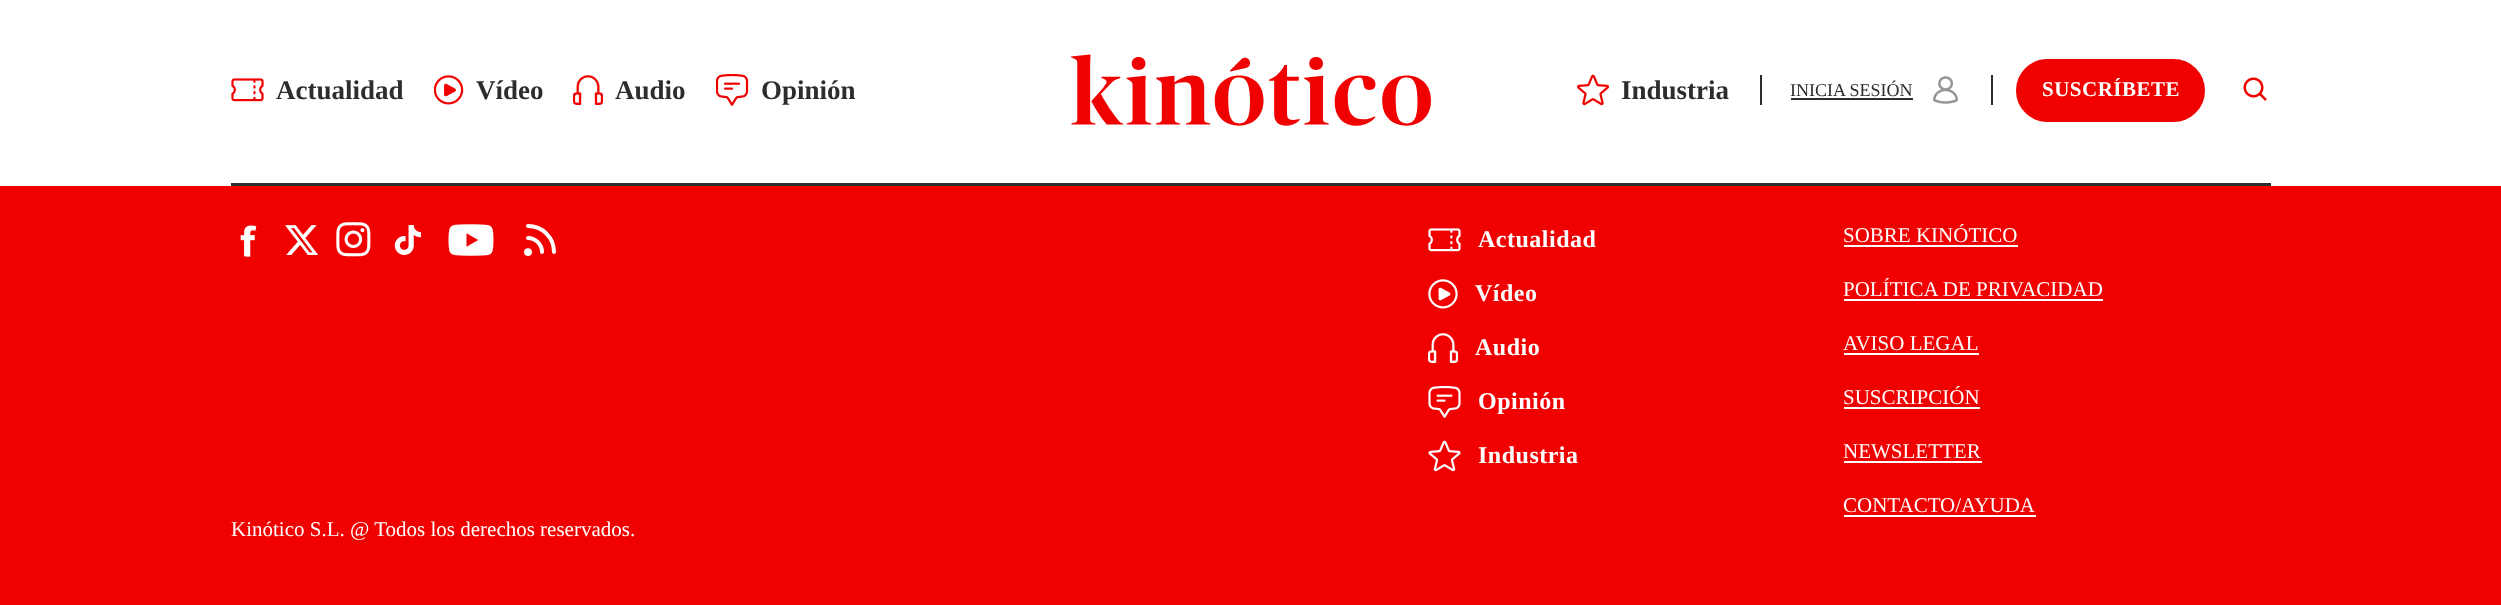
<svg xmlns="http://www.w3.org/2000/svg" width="2501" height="605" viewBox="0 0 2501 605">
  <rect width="100%" height="100%" fill="#f10000"/>
  <rect x="0" y="0" width="2501" height="186" fill="#ffffff"/>
  <rect x="231" y="183" width="2040" height="3" fill="#2c2d2d"/>
  <image x="231" y="78" width="33" height="24" href="img1.png"/>
  <text x="276" y="99" font-family="Liberation Serif" font-size="27" font-weight="bold" fill="#2c2d2d">Actualidad</text>
  <image x="434" y="75" width="30" height="30" href="img2.png"/>
  <text x="476" y="99" font-family="Liberation Serif" font-size="27" font-weight="bold" fill="#2c2d2d">Vídeo</text>
  <image x="573" y="75" width="30" height="30" href="img3.png"/>
  <text x="615" y="99" font-family="Liberation Serif" font-size="27" font-weight="bold" fill="#2c2d2d">Audio</text>
  <image x="716" y="74" width="33" height="32" href="img4.png"/>
  <text x="761" y="99" font-family="Liberation Serif" font-size="27" font-weight="bold" fill="#2c2d2d">Opinión</text>
  <image x="1071" y="54" width="360" height="72" href="img5.png"/>
  <image x="1577" y="74" width="32" height="32" href="img6.png"/>
  <text x="1621" y="99" font-family="Liberation Serif" font-size="27" font-weight="bold" fill="#2c2d2d">Industria</text>
  <rect x="1991" y="75" width="2" height="30" fill="#2c2d2d"/>
  <rect x="1760" y="75" width="2" height="30" fill="#2c2d2d"/>
  <text x="1790" y="96" font-family="Liberation Serif" font-size="18" fill="#2c2d2d">INICIA SESIÓN</text>
  <rect x="1791" y="98" width="122" height="2" fill="#2c2d2d"/>
  <image x="1933" y="76" width="25" height="28" href="img7.png"/>
  <rect x="2017" y="60" width="187" height="61" rx="30.5" fill="#f10000" stroke="#f10000" stroke-width="2"/>
  <text x="2042" y="96" font-family="Liberation Serif" font-size="21" font-weight="bold" letter-spacing="0.5" fill="#ffffff">SUSCRÍBETE</text>
  <image x="2243" y="77" width="24" height="24" href="img8.png"/>
  <image x="1428" y="228" width="33" height="24" href="img9.png"/>
  <text x="1478" y="247" font-family="Liberation Serif" font-size="24" font-weight="bold" letter-spacing="0.5" fill="#ffffff">Actualidad</text>
  <image x="1428" y="279" width="30" height="30" href="img10.png"/>
  <text x="1475" y="301" font-family="Liberation Serif" font-size="24" font-weight="bold" letter-spacing="0.5" fill="#ffffff">Vídeo</text>
  <image x="1428" y="333" width="30" height="30" href="img11.png"/>
  <text x="1475" y="355" font-family="Liberation Serif" font-size="24" font-weight="bold" letter-spacing="0.5" fill="#ffffff">Audio</text>
  <image x="1428" y="386" width="33" height="32" href="img12.png"/>
  <text x="1478" y="409" font-family="Liberation Serif" font-size="24" font-weight="bold" letter-spacing="0.5" fill="#ffffff">Opinión</text>
  <image x="1428" y="440" width="33" height="32" href="img13.png"/>
  <text x="1478" y="463" font-family="Liberation Serif" font-size="24" font-weight="bold" letter-spacing="0.5" fill="#ffffff">Industria</text>
  <text x="1843" y="242" font-family="Liberation Serif" font-size="21" fill="#ffffff">SOBRE KINÓTICO</text>
  <rect x="1844" y="245" width="174" height="2" fill="#ffffff"/>
  <text x="1843" y="296" font-family="Liberation Serif" font-size="21" fill="#ffffff">POLÍTICA DE PRIVACIDAD</text>
  <rect x="1844" y="299" width="259" height="2" fill="#ffffff"/>
  <text x="1843" y="350" font-family="Liberation Serif" font-size="21" fill="#ffffff">AVISO LEGAL</text>
  <rect x="1844" y="353" width="135" height="2" fill="#ffffff"/>
  <text x="1843" y="404" font-family="Liberation Serif" font-size="21" fill="#ffffff">SUSCRIPCIÓN</text>
  <rect x="1844" y="407" width="136" height="2" fill="#ffffff"/>
  <text x="1843" y="458" font-family="Liberation Serif" font-size="21" fill="#ffffff">NEWSLETTER</text>
  <rect x="1844" y="461" width="138" height="2" fill="#ffffff"/>
  <text x="1843" y="512" font-family="Liberation Serif" font-size="21" fill="#ffffff">CONTACTO/AYUDA</text>
  <rect x="1844" y="515" width="192" height="2" fill="#ffffff"/>
  <image x="240" y="225" width="17" height="32" href="img14.png"/>
  <image x="285" y="225" width="33" height="30" href="img15.png"/>
  <image x="336" y="222" width="35" height="35" href="img16.png"/>
  <image x="394" y="225" width="27" height="30" href="img17.png"/>
  <image x="448" y="224" width="46" height="32" href="img18.png"/>
  <path d="M528 226C542.5 226 554 237.5 554 252M528 238C535.5 238 542 244.5 542 252M530 252C530 254.5 526 254.5 526 252C526 249.5 530 249.5 530 252Z" fill="none" stroke="#ffffff" stroke-width="4" stroke-linecap="round" stroke-linejoin="round"/>
  <text x="231" y="536" font-family="Liberation Serif" font-size="21" fill="#ffffff">Kinótico S.L. @ Todos los derechos reservados.</text>
</svg>
